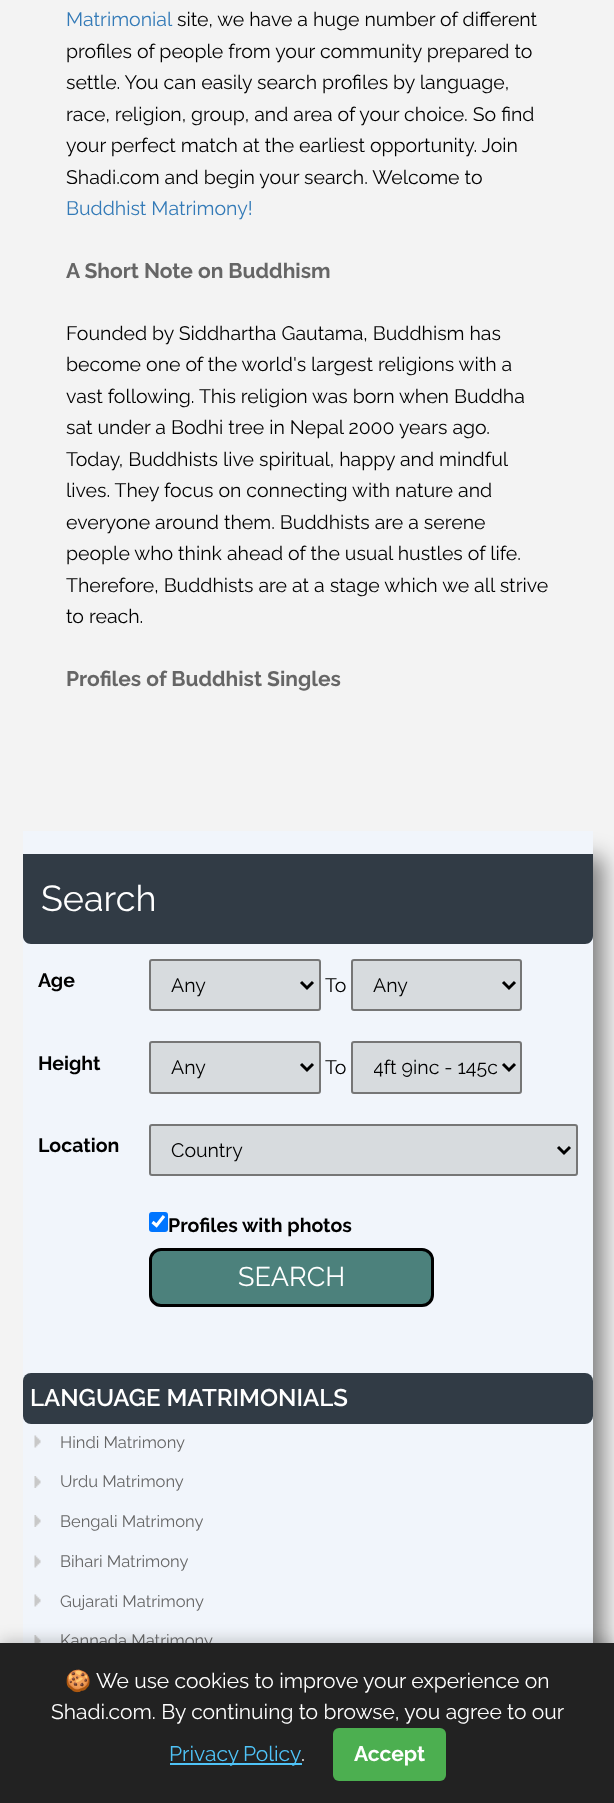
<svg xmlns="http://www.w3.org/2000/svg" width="614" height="1803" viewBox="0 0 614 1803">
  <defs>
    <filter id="blur1" x="-50%" y="-200%" width="200%" height="500%"><feGaussianBlur stdDeviation="11"/></filter>
    <clipPath id="clip1"><rect x="374" y="1055" width="123" height="25"/></clipPath>
    <filter id="blur2" x="-50%" y="-200%" width="200%" height="500%"><feGaussianBlur stdDeviation="7.5"/></filter>
  </defs>
  <rect width="100%" height="100%" fill="#f3f3f3"/>
  <text x="66" y="26" font-family="Raleway" font-size="19.5" fill="#337ab7">Matrimonial</text>
  <text x="177" y="26" font-family="Raleway" font-size="19.5" fill="#000000">site, we have a huge number of different</text>
  <text x="66" y="58" font-family="Raleway" font-size="19.5" fill="#000000">profiles of people from your community prepared to</text>
  <text x="66" y="89" font-family="Raleway" font-size="19.5" fill="#000000">settle. You can easily search profiles by language,</text>
  <text x="66" y="121" font-family="Raleway" font-size="19.5" fill="#000000">race, religion, group, and area of your choice. So find</text>
  <text x="66" y="152" font-family="Raleway" font-size="19.5" fill="#000000">your perfect match at the earliest opportunity. Join</text>
  <text x="66" y="184" font-family="Raleway" font-size="19.5" fill="#000000">Shadi.com and begin your search. Welcome to</text>
  <text x="66" y="215" font-family="Raleway" font-size="19.5" fill="#337ab7">Buddhist Matrimony!</text>
  <text x="66" y="278" font-family="Raleway" font-size="21" font-weight="bold" fill="#666666">A Short Note on Buddhism</text>
  <text x="66" y="340" font-family="Raleway" font-size="19.5" fill="#000000">Founded by Siddhartha Gautama, Buddhism has</text>
  <text x="66" y="371" font-family="Raleway" font-size="19.5" fill="#000000">become one of the world's largest religions with a</text>
  <text x="66" y="403" font-family="Raleway" font-size="19.5" fill="#000000">vast following. This religion was born when Buddha</text>
  <text x="66" y="434" font-family="Raleway" font-size="19.5" fill="#000000">sat under a Bodhi tree in Nepal 2000 years ago.</text>
  <text x="66" y="466" font-family="Raleway" font-size="19.5" fill="#000000">Today, Buddhists live spiritual, happy and mindful</text>
  <text x="66" y="497" font-family="Raleway" font-size="19.5" fill="#000000">lives. They focus on connecting with nature and</text>
  <text x="66" y="529" font-family="Raleway" font-size="19.5" fill="#000000">everyone around them. Buddhists are a serene</text>
  <text x="66" y="560" font-family="Raleway" font-size="19.5" fill="#000000">people who think ahead of the usual hustles of life.</text>
  <text x="66" y="592" font-family="Raleway" font-size="19.5" fill="#000000">Therefore, Buddhists are at a stage which we all strive</text>
  <text x="66" y="623" font-family="Raleway" font-size="19.5" fill="#000000">to reach.</text>
  <text x="66" y="686" font-family="Raleway" font-size="21" font-weight="bold" fill="#666666">Profiles of Buddhist Singles</text>
  <rect x="48" y="857" width="555" height="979" fill="#000000" fill-opacity="0.48" filter="url(#blur1)"/>
  <rect x="23" y="831" width="570" height="812" fill="#f1f5fb"/>
  <path d="M23 854H593V936C593 940.5 589.5 944 585 944H31C26.5 944 23 940.5 23 936Z" fill="#313b45"/>
  <text x="41" y="911" font-family="Raleway" font-size="36" fill="#ffffff">Search</text>
  <text x="38" y="987" font-family="Raleway" font-size="19.5" font-weight="bold" fill="#000000">Age</text>
  <rect x="150" y="960" width="170" height="50" rx="2" fill="#d7dbde" stroke="#767676" stroke-width="2"/>
  <path d="M301 982L307 988L313 982" fill="none" stroke="#000000" stroke-width="3"/>
  <text x="171" y="992" font-family="Raleway" font-size="19.5" fill="#000000">Any</text>
  <text x="325" y="992" font-family="Raleway" font-size="19.5" fill="#000000">To</text>
  <rect x="352" y="960" width="169" height="50" rx="2" fill="#d7dbde" stroke="#767676" stroke-width="2"/>
  <path d="M503 982L509 988L515 982" fill="none" stroke="#000000" stroke-width="3"/>
  <text x="373" y="992" font-family="Raleway" font-size="19.5" fill="#000000">Any</text>
  <text x="38" y="1070" font-family="Raleway" font-size="19.5" font-weight="bold" fill="#000000">Height</text>
  <rect x="150" y="1042" width="170" height="51" rx="2" fill="#d7dbde" stroke="#767676" stroke-width="2"/>
  <path d="M301 1064L307 1070L313 1064" fill="none" stroke="#000000" stroke-width="3"/>
  <text x="171" y="1074" font-family="Raleway" font-size="19.5" fill="#000000">Any</text>
  <text x="325" y="1074" font-family="Raleway" font-size="19.5" fill="#000000">To</text>
  <rect x="352" y="1042" width="169" height="51" rx="2" fill="#d7dbde" stroke="#767676" stroke-width="2"/>
  <path d="M503 1064L509 1070L515 1064" fill="none" stroke="#000000" stroke-width="3"/>
  <g clip-path="url(#clip1)">
    <text x="373" y="1074" font-family="Raleway" font-size="19.5" fill="#000000">4ft 9inc - 145c</text>
  </g>
  <text x="38" y="1152" font-family="Raleway" font-size="19.5" font-weight="bold" fill="#000000">Location</text>
  <rect x="150" y="1125" width="427" height="50" rx="2" fill="#d7dbde" stroke="#767676" stroke-width="2"/>
  <path d="M558 1147L564 1153L570 1147" fill="none" stroke="#000000" stroke-width="3"/>
  <text x="171" y="1157" font-family="Raleway" font-size="19.5" fill="#000000">Country</text>
  <rect x="149" y="1212" width="19" height="20" rx="3" fill="#0075ff"/>
  <path d="M152.5 1222L156.5 1225.5L164 1216" fill="none" stroke="#ffffff" stroke-width="3.1"/>
  <text x="168" y="1232" font-family="Raleway" font-size="19.5" font-weight="bold" fill="#000000">Profiles with photos</text>
  <rect x="150.5" y="1249.5" width="282" height="56" rx="10.5" fill="#4c817c" stroke="#000000" stroke-width="3"/>
  <text x="238" y="1286" font-family="Raleway" font-size="27" fill="#ffffff">SEARCH</text>
  <rect x="23" y="1373" width="570" height="51" rx="8" fill="#313b45"/>
  <text x="30" y="1406" font-family="Raleway" font-size="24" font-weight="600" fill="#ffffff">LANGUAGE MATRIMONIALS</text>
  <image x="34" y="1435" width="7" height="13" href="img1.png"/>
  <text x="60" y="1448" font-family="Raleway" font-size="16.5" fill="#666666">Hindi Matrimony</text>
  <image x="34" y="1476" width="7" height="12" href="img2.png"/>
  <text x="60" y="1487" font-family="Raleway" font-size="16.5" fill="#666666">Urdu Matrimony</text>
  <image x="34" y="1515" width="7" height="12" href="img2.png"/>
  <text x="60" y="1527" font-family="Raleway" font-size="16.5" fill="#666666">Bengali Matrimony</text>
  <image x="34" y="1555" width="7" height="13" href="img1.png"/>
  <text x="60" y="1567" font-family="Raleway" font-size="16.5" fill="#666666">Bihari Matrimony</text>
  <image x="34" y="1594" width="7" height="13" href="img1.png"/>
  <text x="60" y="1607" font-family="Raleway" font-size="16.5" fill="#666666">Gujarati Matrimony</text>
  <image x="34" y="1635" width="7" height="8" href="img3.png"/>
  <text x="60" y="1646" font-family="Raleway" font-size="16.5" fill="#666666">Kannada Matrimony</text>
  <rect x="0" y="1640" width="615" height="160" fill="#000000" fill-opacity="0.2" filter="url(#blur2)"/>
  <rect x="0" y="1643" width="614" height="160" fill="#222222"/>
  <text x="65" y="1688" font-family="Noto Color Emoji" font-size="21" fill="#ffffff">🍪</text>
  <text x="96" y="1688" font-family="Raleway" font-size="21" fill="#ffffff">We use cookies to improve your experience on</text>
  <text x="51" y="1719" font-family="Raleway" font-size="21" fill="#ffffff">Shadi.com. By continuing to browse, you agree to our</text>
  <rect x="170" y="1763" width="132" height="2" fill="#4fc3f7"/>
  <text x="169" y="1761" word-spacing="-1" font-family="Raleway" font-size="21" fill="#4fc3f7">Privacy Policy</text>
  <text x="301" y="1761" font-family="Raleway" font-size="21" fill="#ffffff">.</text>
  <rect x="333" y="1728" width="113" height="53" rx="6" fill="#4caf50"/>
  <text x="354" y="1761" font-family="Raleway" font-size="21" font-weight="bold" fill="#ffffff">Accept</text>
</svg>
